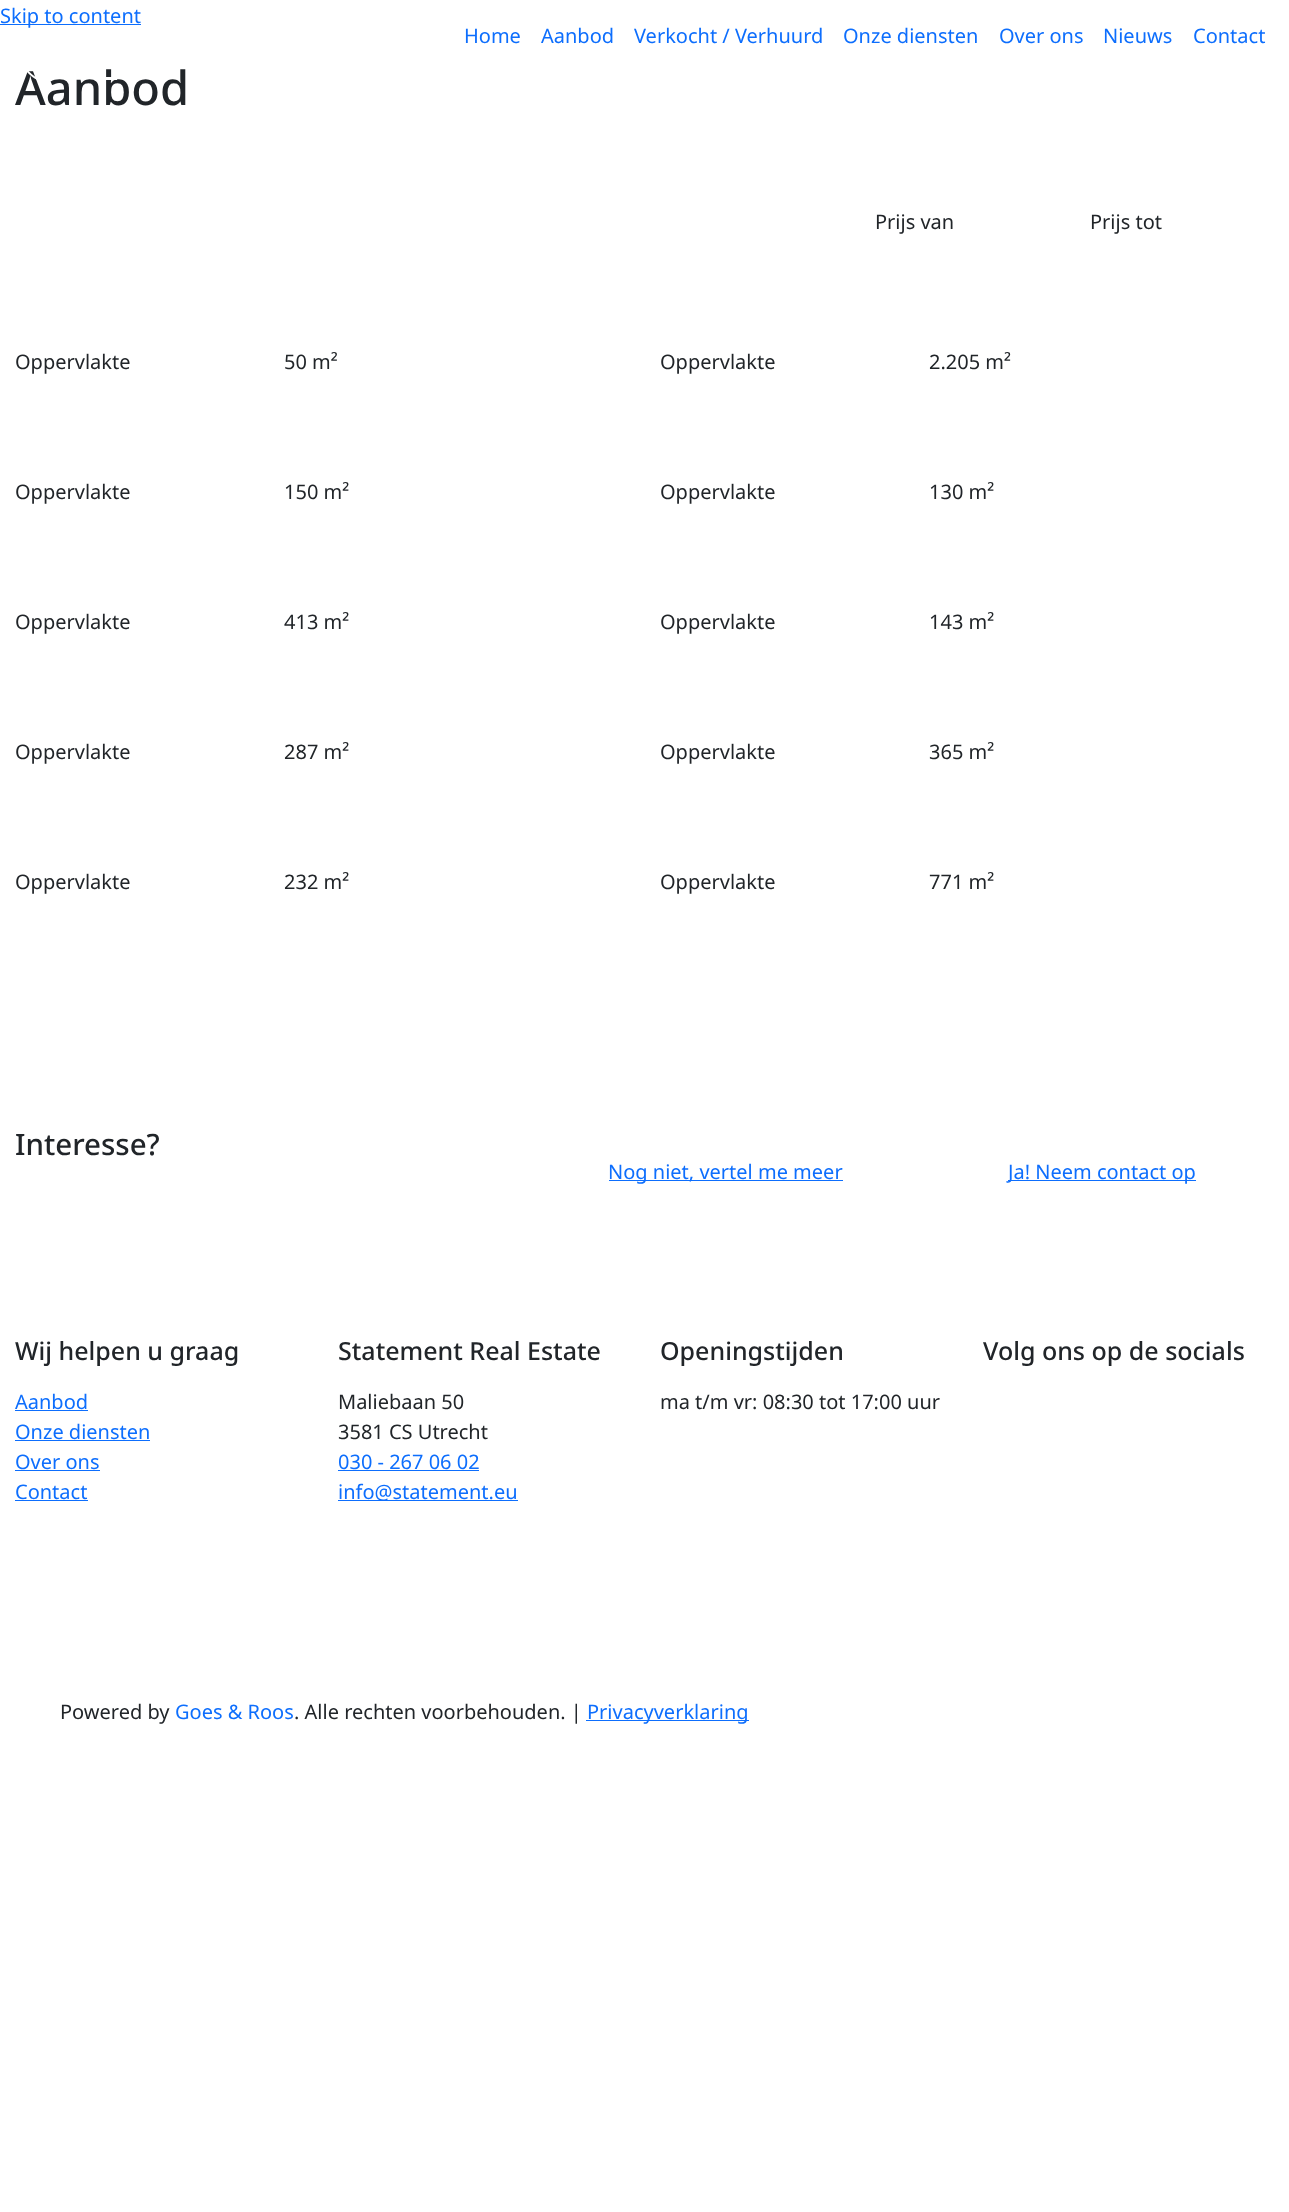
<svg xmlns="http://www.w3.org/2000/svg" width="1289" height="2212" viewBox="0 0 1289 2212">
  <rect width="100%" height="100%" fill="#ffffff"/>
  <rect x="0" y="24" width="141" height="1" fill="#0d6efd"/>
  <text x="0" y="23" font-family="Noto Sans" font-size="20" fill="#0d6efd">Skip to content</text>
  <text x="464" y="43" font-family="Noto Sans" font-size="20" fill="#0d6efd">Home</text>
  <text x="541" y="43" font-family="Noto Sans" font-size="20" fill="#0d6efd">Aanbod</text>
  <text x="634" y="43" font-family="Noto Sans" font-size="20" fill="#0d6efd">Verkocht / Verhuurd</text>
  <text x="843" y="43" font-family="Noto Sans" font-size="20" fill="#0d6efd">Onze diensten</text>
  <text x="999" y="43" font-family="Noto Sans" font-size="20" fill="#0d6efd">Over ons</text>
  <text x="1103" y="43" font-family="Noto Sans" font-size="20" fill="#0d6efd">Nieuws</text>
  <text x="1193" y="43" font-family="Noto Sans" font-size="20" fill="#0d6efd">Contact</text>
  <text x="15" y="105" font-family="Noto Sans" font-size="47" font-weight="500" fill="#212529">Aanbod</text>
  <image x="27" y="71" width="10" height="9" href="img1.png"/>
  <rect x="105" y="77" width="12" height="3" fill="#ffffff"/>
  <text x="875" y="229" font-family="Noto Sans" font-size="20" fill="#212529">Prijs van</text>
  <text x="1090" y="229" font-family="Noto Sans" font-size="20" fill="#212529">Prijs tot</text>
  <text x="15" y="369" font-family="Noto Sans" font-size="20" fill="#212529">Oppervlakte</text>
  <text x="284" y="369" font-family="Noto Sans" font-size="20" fill="#212529">50 m²</text>
  <text x="660" y="369" font-family="Noto Sans" font-size="20" fill="#212529">Oppervlakte</text>
  <text x="929" y="369" font-family="Noto Sans" font-size="20" fill="#212529">2.205 m²</text>
  <text x="15" y="499" font-family="Noto Sans" font-size="20" fill="#212529">Oppervlakte</text>
  <text x="284" y="499" font-family="Noto Sans" font-size="20" fill="#212529">150 m²</text>
  <text x="660" y="499" font-family="Noto Sans" font-size="20" fill="#212529">Oppervlakte</text>
  <text x="929" y="499" font-family="Noto Sans" font-size="20" fill="#212529">130 m²</text>
  <text x="15" y="629" font-family="Noto Sans" font-size="20" fill="#212529">Oppervlakte</text>
  <text x="284" y="629" font-family="Noto Sans" font-size="20" fill="#212529">413 m²</text>
  <text x="660" y="629" font-family="Noto Sans" font-size="20" fill="#212529">Oppervlakte</text>
  <text x="929" y="629" font-family="Noto Sans" font-size="20" fill="#212529">143 m²</text>
  <text x="15" y="759" font-family="Noto Sans" font-size="20" fill="#212529">Oppervlakte</text>
  <text x="284" y="759" font-family="Noto Sans" font-size="20" fill="#212529">287 m²</text>
  <text x="660" y="759" font-family="Noto Sans" font-size="20" fill="#212529">Oppervlakte</text>
  <text x="929" y="759" font-family="Noto Sans" font-size="20" fill="#212529">365 m²</text>
  <text x="15" y="889" font-family="Noto Sans" font-size="20" fill="#212529">Oppervlakte</text>
  <text x="284" y="889" font-family="Noto Sans" font-size="20" fill="#212529">232 m²</text>
  <text x="660" y="889" font-family="Noto Sans" font-size="20" fill="#212529">Oppervlakte</text>
  <text x="929" y="889" font-family="Noto Sans" font-size="20" fill="#212529">771 m²</text>
  <text x="15" y="1155" font-family="Noto Sans" font-size="29.5" font-weight="500" fill="#212529">Interesse?</text>
  <rect x="609" y="1180" width="234" height="1" fill="#0d6efd"/>
  <text x="608" y="1179" font-family="Noto Sans" font-size="20" fill="#0d6efd">Nog niet, vertel me meer</text>
  <rect x="1008" y="1180" width="188" height="1" fill="#0d6efd"/>
  <text x="1008" y="1179" font-family="Noto Sans" font-size="20" fill="#0d6efd">Ja! Neem contact op</text>
  <text x="15" y="1360" font-family="Noto Sans" font-size="25" font-weight="500" fill="#212529">Wij helpen u graag</text>
  <text x="15" y="1409" font-family="Noto Sans" font-size="20" fill="#0d6efd">Aanbod</text>
  <rect x="15" y="1410" width="73" height="1" fill="#0d6efd"/>
  <text x="15" y="1439" font-family="Noto Sans" font-size="20" fill="#0d6efd">Onze diensten</text>
  <rect x="15" y="1440" width="135" height="1" fill="#0d6efd"/>
  <text x="15" y="1469" font-family="Noto Sans" font-size="20" fill="#0d6efd">Over ons</text>
  <rect x="15" y="1470" width="85" height="1" fill="#0d6efd"/>
  <text x="15" y="1499" font-family="Noto Sans" font-size="20" fill="#0d6efd">Contact</text>
  <rect x="15" y="1500" width="73" height="1" fill="#0d6efd"/>
  <text x="338" y="1360" font-family="Noto Sans" font-size="25" font-weight="500" fill="#212529">Statement Real Estate</text>
  <text x="338" y="1409" font-family="Noto Sans" font-size="20" fill="#212529">Maliebaan 50</text>
  <text x="338" y="1439" font-family="Noto Sans" font-size="20" fill="#212529">3581 CS Utrecht</text>
  <text x="338" y="1469" font-family="Noto Sans" font-size="20" fill="#0d6efd">030 - 267 06 02</text>
  <rect x="338" y="1470" width="141" height="1" fill="#0d6efd"/>
  <rect x="338" y="1500" width="180" height="1" fill="#0d6efd"/>
  <text x="338" y="1499" font-family="Noto Sans" font-size="20" fill="#0d6efd">info@statement.eu</text>
  <text x="660" y="1360" font-family="Noto Sans" font-size="25" font-weight="500" fill="#212529">Openingstijden</text>
  <text x="660" y="1409" font-family="Noto Sans" font-size="20" fill="#212529">ma t/m vr: 08:30 tot 17:00 uur</text>
  <text x="983" y="1360" font-family="Noto Sans" font-size="25" font-weight="500" fill="#212529">Volg ons op de socials</text>
  <text x="60" y="1719" font-family="Noto Sans" font-size="20" fill="#212529">Powered by</text>
  <text x="175" y="1719" font-family="Noto Sans" font-size="20" fill="#0d6efd">Goes &amp; Roos</text>
  <text x="294" y="1719" font-family="Noto Sans" font-size="20" fill="#212529">. Alle rechten voorbehouden. |</text>
  <rect x="586" y="1720" width="163" height="1" fill="#0d6efd"/>
  <text x="587" y="1719" font-family="Noto Sans" font-size="20" fill="#0d6efd">Privacyverklaring</text>
</svg>
